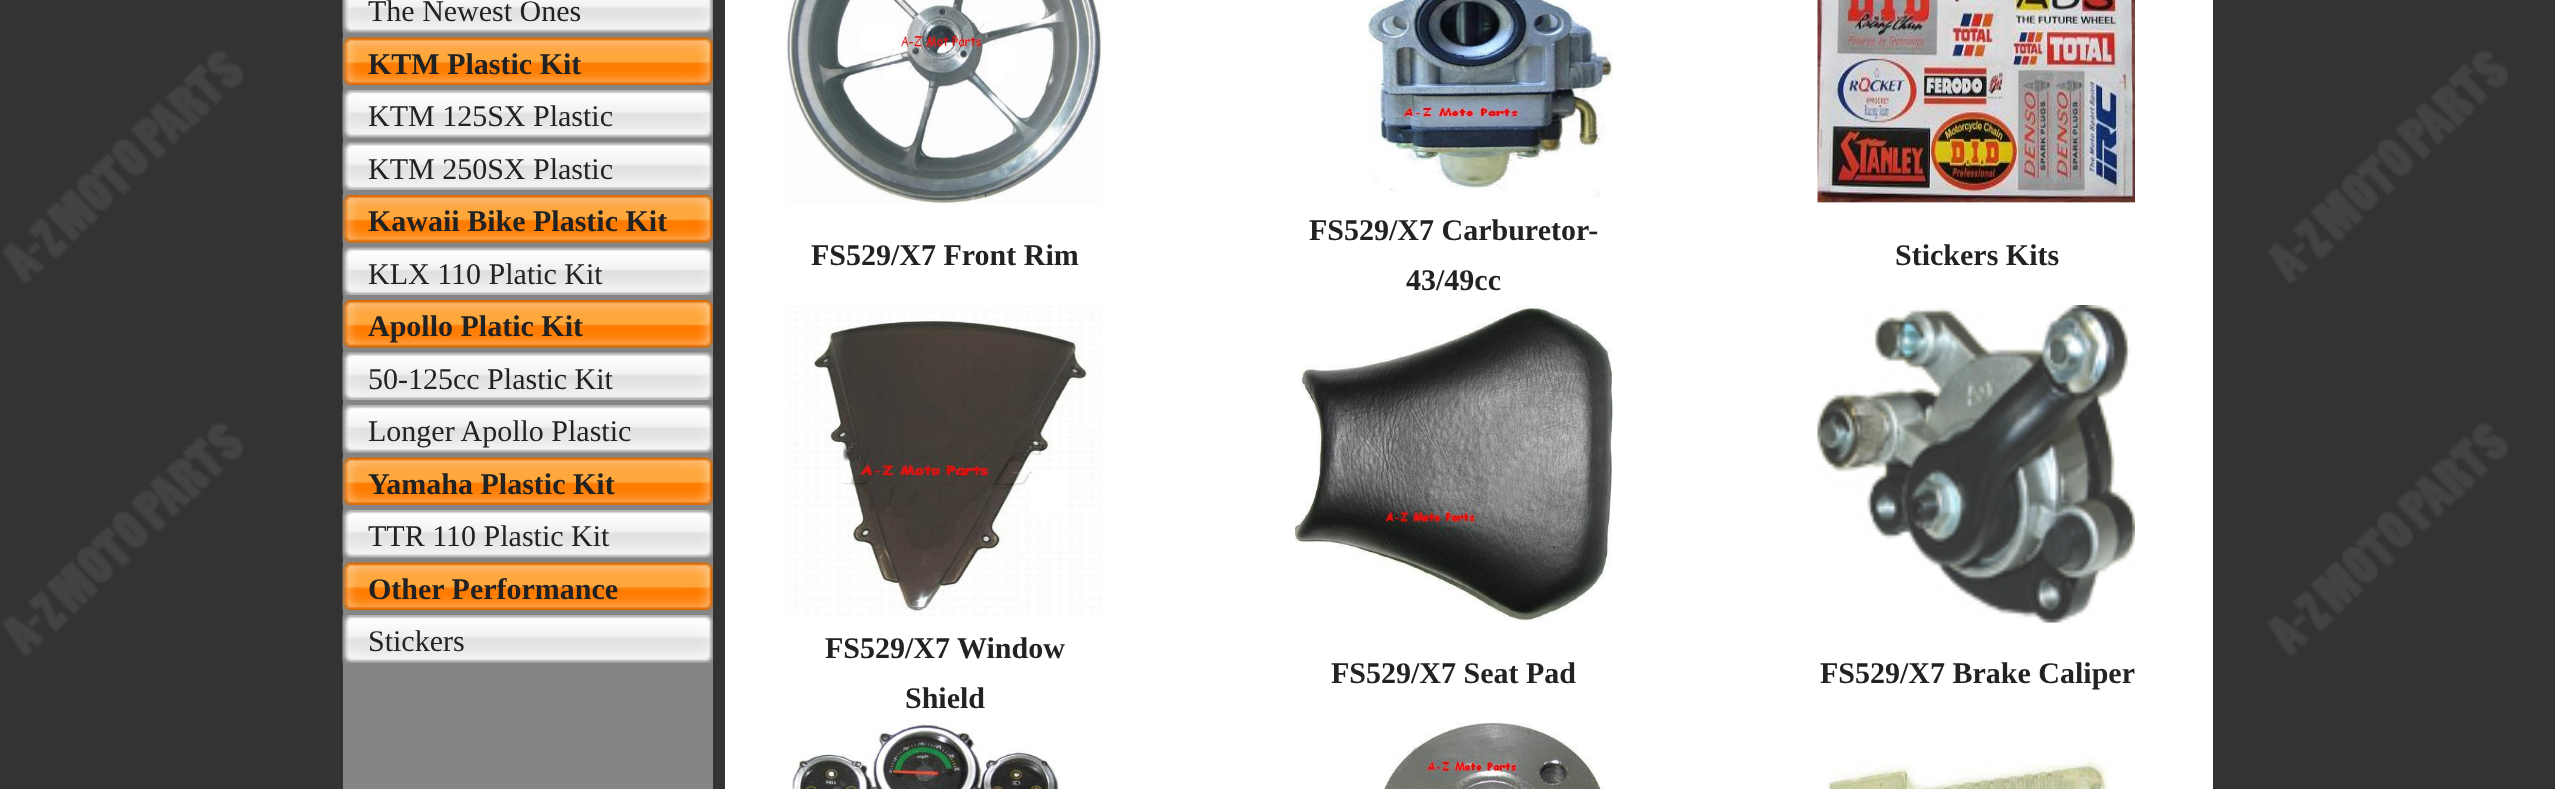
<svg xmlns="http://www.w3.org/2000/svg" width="2555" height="789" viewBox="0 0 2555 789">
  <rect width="100%" height="100%" fill="#ffffff"/>
  <image x="0" y="0" width="2555" height="789" href="img1.png"/>
  <rect x="343" y="0" width="370" height="789" fill="#858585"/>
  <image x="342" y="0" width="371" height="33" href="img2.png"/>
  <text x="368" y="21" font-family="Liberation Serif" font-size="30" fill="#222222">The Newest Ones</text>
  <image x="342" y="37" width="371" height="48" href="img3.png"/>
  <text x="368" y="74" font-family="Liberation Serif" font-size="30" font-weight="bold" fill="#222222">KTM Plastic Kit</text>
  <image x="342" y="90" width="371" height="48" href="img4.png"/>
  <text x="368" y="126" font-family="Liberation Serif" font-size="30" fill="#222222">KTM 125SX Plastic</text>
  <image x="342" y="142" width="371" height="48" href="img5.png"/>
  <text x="368" y="179" font-family="Liberation Serif" font-size="30" fill="#222222">KTM 250SX Plastic</text>
  <image x="342" y="195" width="371" height="48" href="img6.png"/>
  <text x="368" y="231" font-family="Liberation Serif" font-size="30" font-weight="bold" fill="#222222">Kawaii Bike Plastic Kit</text>
  <image x="342" y="247" width="371" height="48" href="img5.png"/>
  <text x="368" y="284" font-family="Liberation Serif" font-size="30" fill="#222222">KLX 110 Platic Kit</text>
  <image x="342" y="300" width="371" height="48" href="img6.png"/>
  <text x="368" y="336" font-family="Liberation Serif" font-size="30" font-weight="bold" fill="#222222">Apollo Platic Kit</text>
  <image x="342" y="352" width="371" height="48" href="img5.png"/>
  <text x="368" y="389" font-family="Liberation Serif" font-size="30" fill="#222222">50-125cc Plastic Kit</text>
  <image x="342" y="405" width="371" height="48" href="img7.png"/>
  <text x="368" y="441" font-family="Liberation Serif" font-size="30" fill="#222222">Longer Apollo Plastic</text>
  <image x="342" y="457" width="371" height="48" href="img3.png"/>
  <text x="368" y="494" font-family="Liberation Serif" font-size="30" font-weight="bold" fill="#222222">Yamaha Plastic Kit</text>
  <image x="342" y="510" width="371" height="48" href="img7.png"/>
  <text x="368" y="546" font-family="Liberation Serif" font-size="30" fill="#222222">TTR 110 Plastic Kit</text>
  <image x="342" y="562" width="371" height="48" href="img3.png"/>
  <text x="368" y="599" font-family="Liberation Serif" font-size="30" font-weight="bold" fill="#222222">Other Performance</text>
  <image x="342" y="615" width="371" height="48" href="img7.png"/>
  <text x="368" y="651" font-family="Liberation Serif" font-size="30" fill="#222222">Stickers</text>
  <rect x="725" y="0" width="1488" height="789" fill="#ffffff"/>
  <image x="785" y="0" width="318" height="205" href="img8.png"/>
  <text x="811" y="265" font-family="Liberation Serif" font-size="30" font-weight="bold" fill="#222222">FS529/X7 Front Rim</text>
  <image x="1367" y="0" width="246" height="197" href="img9.png"/>
  <text x="1309" y="240" font-family="Liberation Serif" font-size="30" font-weight="bold" fill="#222222">FS529/X7 Carburetor-</text>
  <text x="1406" y="290" font-family="Liberation Serif" font-size="30" font-weight="bold" fill="#222222">43/49cc</text>
  <image x="1817" y="0" width="318" height="204" href="img10.png"/>
  <text x="1895" y="265" font-family="Liberation Serif" font-size="30" font-weight="bold" fill="#222222">Stickers Kits</text>
  <image x="787" y="306" width="314" height="310" href="img11.png"/>
  <text x="825" y="658" font-family="Liberation Serif" font-size="30" font-weight="bold" fill="#222222">FS529/X7 Window</text>
  <text x="905" y="708" font-family="Liberation Serif" font-size="30" font-weight="bold" fill="#222222">Shield</text>
  <image x="1295" y="305" width="318" height="317" href="img12.png"/>
  <text x="1331" y="683" font-family="Liberation Serif" font-size="30" font-weight="bold" fill="#222222">FS529/X7 Seat Pad</text>
  <image x="1817" y="305" width="318" height="318" href="img13.png"/>
  <text x="1820" y="683" font-family="Liberation Serif" font-size="30" font-weight="bold" fill="#222222">FS529/X7 Brake Caliper</text>
  <image x="792" y="722" width="270" height="67" href="img14.png"/>
  <image x="1382" y="722" width="223" height="67" href="img15.png"/>
  <image x="1820" y="757" width="290" height="32" href="img16.png"/>
</svg>
